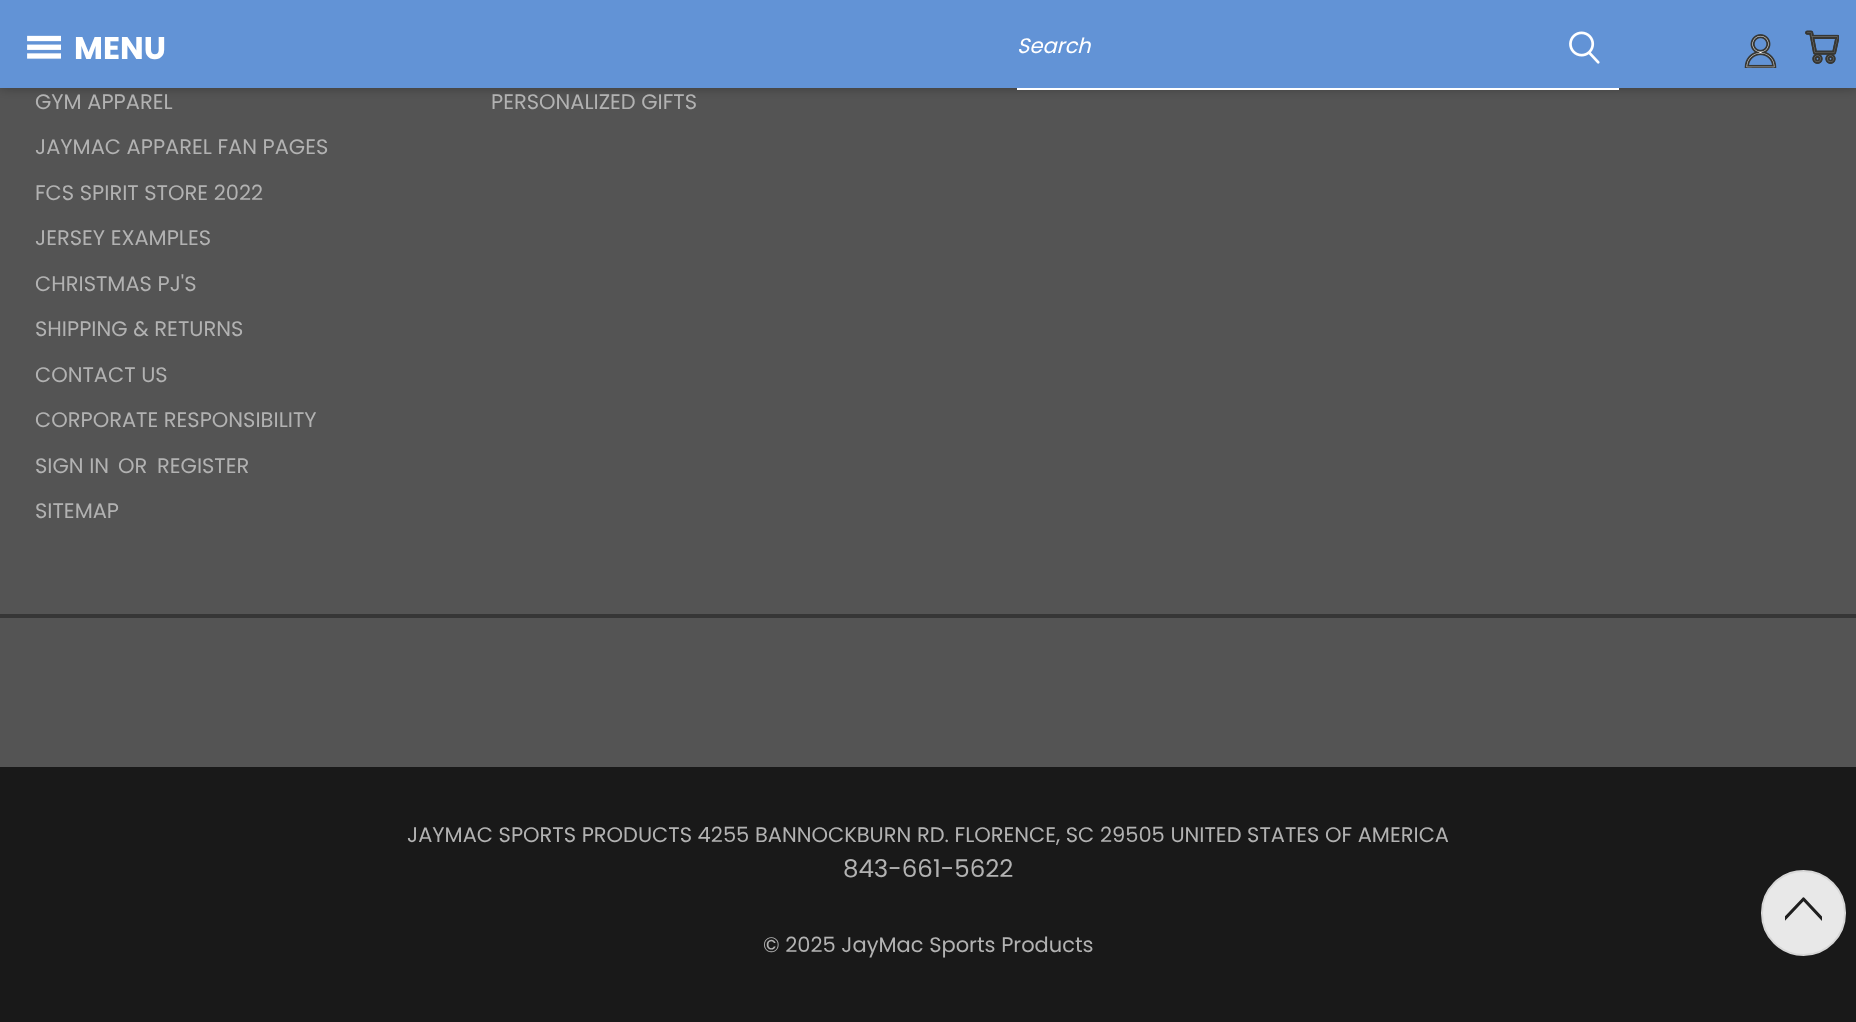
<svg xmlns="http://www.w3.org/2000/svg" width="1856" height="1022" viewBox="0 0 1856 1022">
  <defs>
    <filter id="blur1" x="-50%" y="-200%" width="200%" height="500%"><feGaussianBlur stdDeviation="6"/></filter>
    <clipPath id="clip1"><path d="M1822 897V933.5H1785V897Z"/></clipPath>
  </defs>
  <rect width="100%" height="100%" fill="#545454"/>
  <rect x="0" y="0" width="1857" height="88" fill="#000000" fill-opacity="0.3" filter="url(#blur1)"/>
  <rect x="0" y="0" width="1856" height="88" fill="#6293d6"/>
  <image x="27" y="35" width="34" height="24" href="img1.png"/>
  <text x="74" y="59" font-family="Poppins" font-size="31.5" font-weight="bold" fill="#ffffff">MENU</text>
  <rect x="1017" y="88" width="602" height="2" fill="#ffffff"/>
  <text x="1017" y="53" font-family="Poppins" font-size="21" font-style="italic" fill="#ffffff">Search</text>
  <image x="1569" y="31" width="31" height="33" href="img2.png"/>
  <image x="1744" y="34" width="33" height="34" href="img3.png"/>
  <image x="1805" y="30" width="34" height="34" href="img4.png"/>
  <text x="35" y="109" font-family="Poppins" font-size="21" fill="#b2b2b2">GYM APPAREL</text>
  <text x="35" y="154" font-family="Poppins" font-size="21" fill="#b2b2b2">JAYMAC APPAREL FAN PAGES</text>
  <text x="35" y="200" font-family="Poppins" font-size="21" fill="#b2b2b2">FCS SPIRIT STORE 2022</text>
  <text x="35" y="245" font-family="Poppins" font-size="21" fill="#b2b2b2">JERSEY EXAMPLES</text>
  <text x="35" y="291" font-family="Poppins" font-size="21" fill="#b2b2b2">CHRISTMAS PJ'S</text>
  <text x="35" y="336" font-family="Poppins" font-size="21" fill="#b2b2b2">SHIPPING &amp; RETURNS</text>
  <text x="35" y="382" font-family="Poppins" font-size="21" fill="#b2b2b2">CONTACT US</text>
  <text x="35" y="427" font-family="Poppins" font-size="21" fill="#b2b2b2">CORPORATE RESPONSIBILITY</text>
  <text x="35" y="473" font-family="Poppins" font-size="21" fill="#b2b2b2">SIGN IN</text>
  <text x="118" y="473" font-family="Poppins" font-size="21" fill="#b2b2b2">OR</text>
  <text x="157" y="473" font-family="Poppins" font-size="21" fill="#b2b2b2">REGISTER</text>
  <text x="35" y="518" font-family="Poppins" font-size="21" fill="#b2b2b2">SITEMAP</text>
  <text x="491" y="109" font-family="Poppins" font-size="21" fill="#b2b2b2">PERSONALIZED GIFTS</text>
  <rect x="0" y="614" width="1856" height="4" fill="#363636"/>
  <rect x="0" y="767" width="1856" height="255" fill="#191919"/>
  <text x="407" y="842" font-family="Poppins" font-size="21" fill="#b2b2b2">JAYMAC SPORTS PRODUCTS 4255 BANNOCKBURN RD. FLORENCE, SC 29505 UNITED STATES OF AMERICA</text>
  <text x="843" y="877" font-family="Poppins" font-size="24.5" fill="#b2b2b2">843-661-5622</text>
  <text x="763" y="952" font-family="Poppins" font-size="21" fill="#b2b2b2">© 2025 JayMac Sports Products</text>
  <rect x="1762" y="871" width="83" height="84" rx="41.5" fill="#e8e8e8" stroke="#d7d7d7" stroke-width="2"/>
  <g clip-path="url(#clip1)">
    <path d="M1834 931.5L1803.5 899L1773 931" fill="none" stroke="#1f1f1f" stroke-width="3.1" stroke-linecap="round" stroke-linejoin="round"/>
  </g>
</svg>
